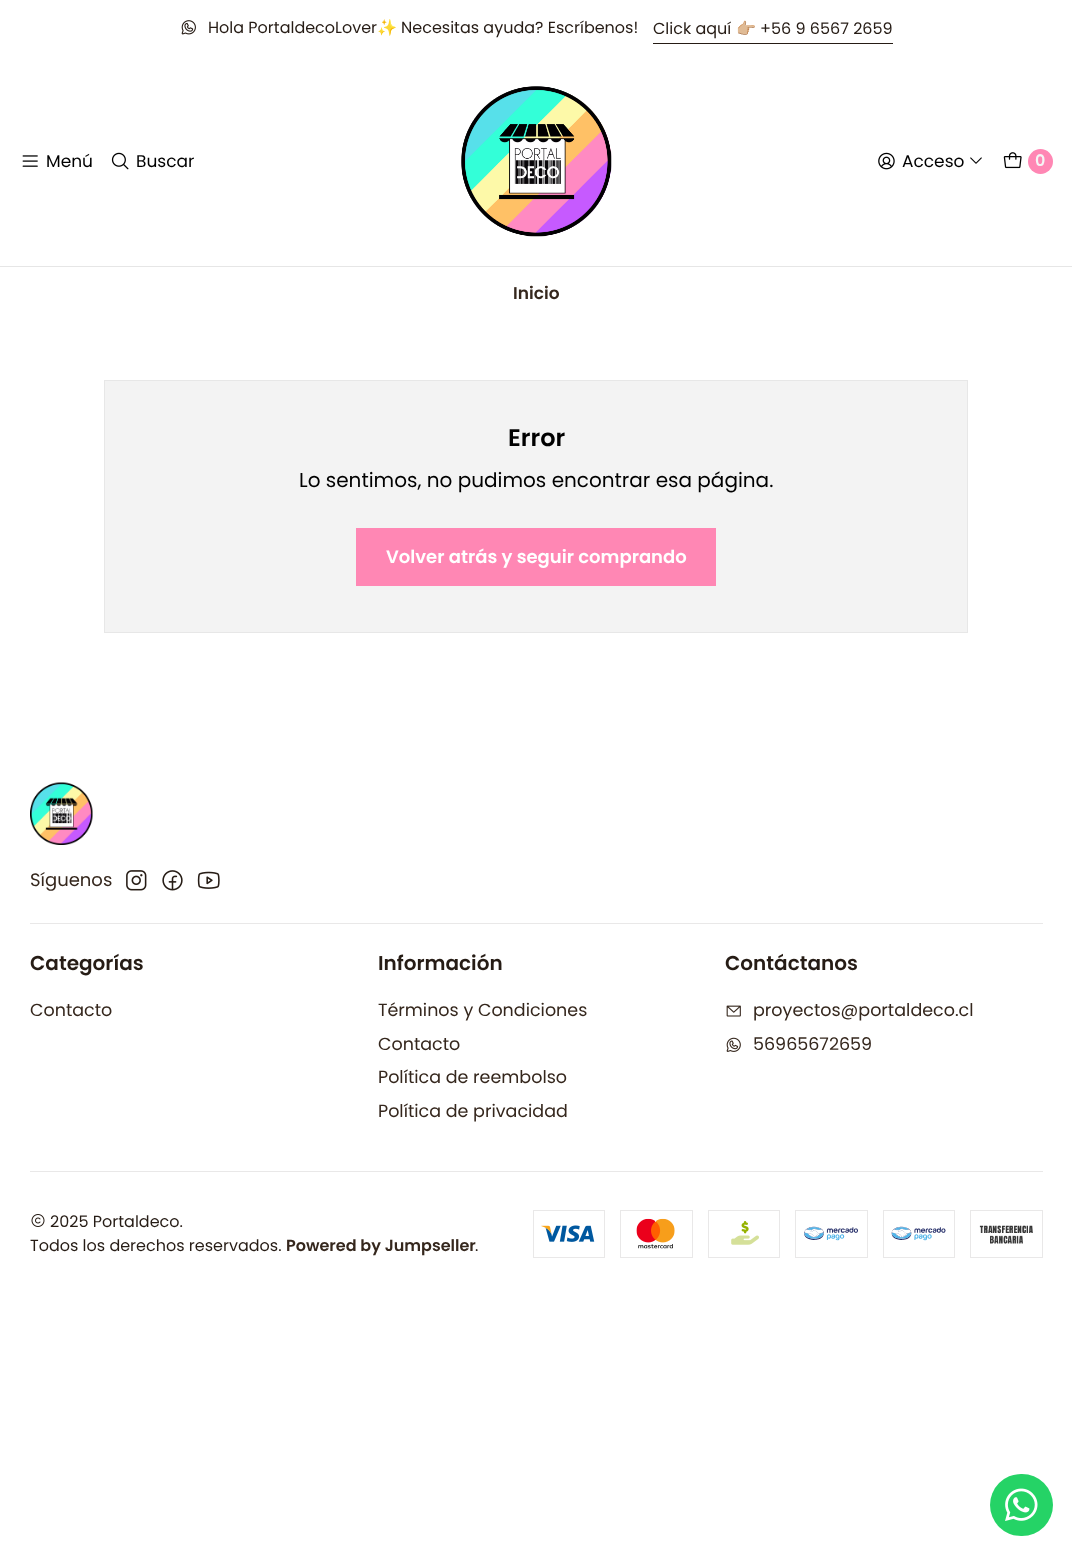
<svg xmlns="http://www.w3.org/2000/svg" width="1072" height="1556" viewBox="0 0 1072 1556">
  <rect width="100%" height="100%" fill="#ffffff"/>
  <image x="181" y="20" width="15" height="15" href="img1.png"/>
  <text x="208" y="33" font-family="Poppins" font-size="16" fill="#261c15">Hola PortaldecoLover</text>
  <text x="377" y="33" font-family="Noto Color Emoji" font-size="16" fill="#261c15">✨</text>
  <text x="401" y="33" font-family="Poppins" font-size="16" fill="#261c15">Necesitas ayuda? Escríbenos!</text>
  <rect x="653" y="43" width="240" height="1" fill="#261c15"/>
  <text x="653" y="34" font-family="Poppins" font-size="16" fill="#261c15">Click aquí</text>
  <text x="736" y="34" font-family="Noto Color Emoji" font-size="16" fill="#261c15">👉🏼</text>
  <text x="760" y="34" font-family="Poppins" font-size="16" fill="#261c15">+56 9 6567 2659</text>
  <rect x="0" y="266" width="1072" height="1" fill="#e6e6e6"/>
  <image x="22" y="155" width="16" height="12" href="img2.png"/>
  <text x="46" y="167" font-family="Poppins" font-size="17" fill="#000000">Menú</text>
  <image x="111" y="152" width="18" height="18" href="img3.png"/>
  <text x="136" y="167" font-family="Poppins" font-size="17" fill="#000000">Buscar</text>
  <image x="461" y="86" width="151" height="151" href="img4.png"/>
  <image x="878" y="152" width="17" height="18" href="img5.png"/>
  <text x="902" y="167" font-family="Poppins" font-size="17" fill="#000000">Acceso</text>
  <image x="970" y="157" width="12" height="7" href="img6.png"/>
  <image x="1003" y="152" width="19" height="17" href="img7.png"/>
  <circle cx="1040.5" cy="161.5" r="12.5" fill="#ff87b4"/>
  <text x="1035" y="166" font-family="Poppins" font-size="16" font-weight="600" fill="#f5f5f5">0</text>
  <text x="513" y="299" font-family="Poppins" font-size="17" font-weight="600" fill="#35271d">Inicio</text>
  <rect x="104.5" y="380.5" width="863" height="252" fill="#f3f3f3" stroke="#e7e7e7"/>
  <text x="508" y="446" font-family="Poppins" font-size="24" font-weight="600" fill="#000000">Error</text>
  <text x="299" y="487" font-family="Poppins" font-size="20" fill="#000000">Lo sentimos, no pudimos encontrar esa página.</text>
  <rect x="356" y="528" width="360" height="58" fill="#ff87b4"/>
  <text x="386" y="563" font-family="Poppins" font-size="18" font-weight="600" fill="#ffffff">Volver atrás y seguir comprando</text>
  <image x="30" y="782" width="63" height="63" href="img8.png"/>
  <text x="30" y="886" font-family="Poppins" font-size="18" fill="#35271d">Síguenos</text>
  <image x="126" y="870" width="21" height="21" href="img9.png"/>
  <image x="162" y="870" width="21" height="21" href="img10.png"/>
  <image x="197" y="871" width="23" height="18" href="img11.png"/>
  <rect x="30" y="923" width="1013" height="1" fill="#e9e8e8"/>
  <text x="30" y="970" font-family="Poppins" font-size="20" font-weight="600" fill="#261c15">Categorías</text>
  <text x="30" y="1016" font-family="Poppins" font-size="17.5" fill="#35271d">Contacto</text>
  <text x="378" y="970" font-family="Poppins" font-size="20" font-weight="600" fill="#261c15">Información</text>
  <text x="378" y="1016" font-family="Poppins" font-size="17.5" fill="#35271d">Términos y Condiciones</text>
  <text x="378" y="1050" font-family="Poppins" font-size="17.5" fill="#35271d">Contacto</text>
  <text x="378" y="1083" font-family="Poppins" font-size="17.5" fill="#35271d">Política de reembolso</text>
  <text x="378" y="1117" font-family="Poppins" font-size="17.5" fill="#35271d">Política de privacidad</text>
  <text x="725" y="970" font-family="Poppins" font-size="20" font-weight="600" fill="#261c15">Contáctanos</text>
  <image x="726" y="1005" width="15" height="12" href="img12.png"/>
  <text x="753" y="1016" font-family="Poppins" font-size="17.5" fill="#35271d">proyectos@portaldeco.cl</text>
  <image x="726" y="1037" width="15" height="15" href="img13.png"/>
  <text x="753" y="1050" font-family="Poppins" font-size="17.5" fill="#35271d">56965672659</text>
  <rect x="30" y="1171" width="1013" height="1" fill="#e9e8e8"/>
  <image x="31" y="1214" width="14" height="13" href="img14.png"/>
  <text x="50" y="1227" font-family="Poppins" font-size="16" fill="#261c15">2025 Portaldeco.</text>
  <text x="30" y="1251" font-family="Poppins" font-size="16" fill="#261c15">Todos los derechos reservados.</text>
  <text x="286" y="1251" font-family="Poppins" font-size="16" font-weight="600" fill="#35271d">Powered by Jumpseller</text>
  <text x="475" y="1251" font-family="Poppins" font-size="16" fill="#261c15">.</text>
  <rect x="533.5" y="1210.5" width="71" height="47" fill="none" stroke="#e9e8e8"/>
  <image x="541" y="1225" width="54" height="17" href="img15.png"/>
  <rect x="620.5" y="1210.5" width="72" height="47" fill="none" stroke="#e9e8e8"/>
  <image x="636" y="1218" width="39" height="31" href="img16.png"/>
  <rect x="708.5" y="1210.5" width="71" height="47" fill="none" stroke="#e9e8e8"/>
  <image x="731" y="1221" width="28" height="24" href="img17.png"/>
  <rect x="795.5" y="1210.5" width="72" height="47" fill="none" stroke="#e9e8e8"/>
  <image x="804" y="1226" width="54" height="15" href="img18.png"/>
  <rect x="883.5" y="1210.5" width="71" height="47" fill="none" stroke="#e9e8e8"/>
  <image x="891" y="1226" width="55" height="15" href="img19.png"/>
  <rect x="970.5" y="1210.5" width="72" height="47" fill="none" stroke="#e9e8e8"/>
  <image x="979" y="1225" width="54" height="19" href="img20.png"/>
  <rect x="990" y="1474" width="63" height="62" rx="31" fill="#25d366"/>
  <image x="1005" y="1488" width="33" height="33" href="img21.png"/>
</svg>
